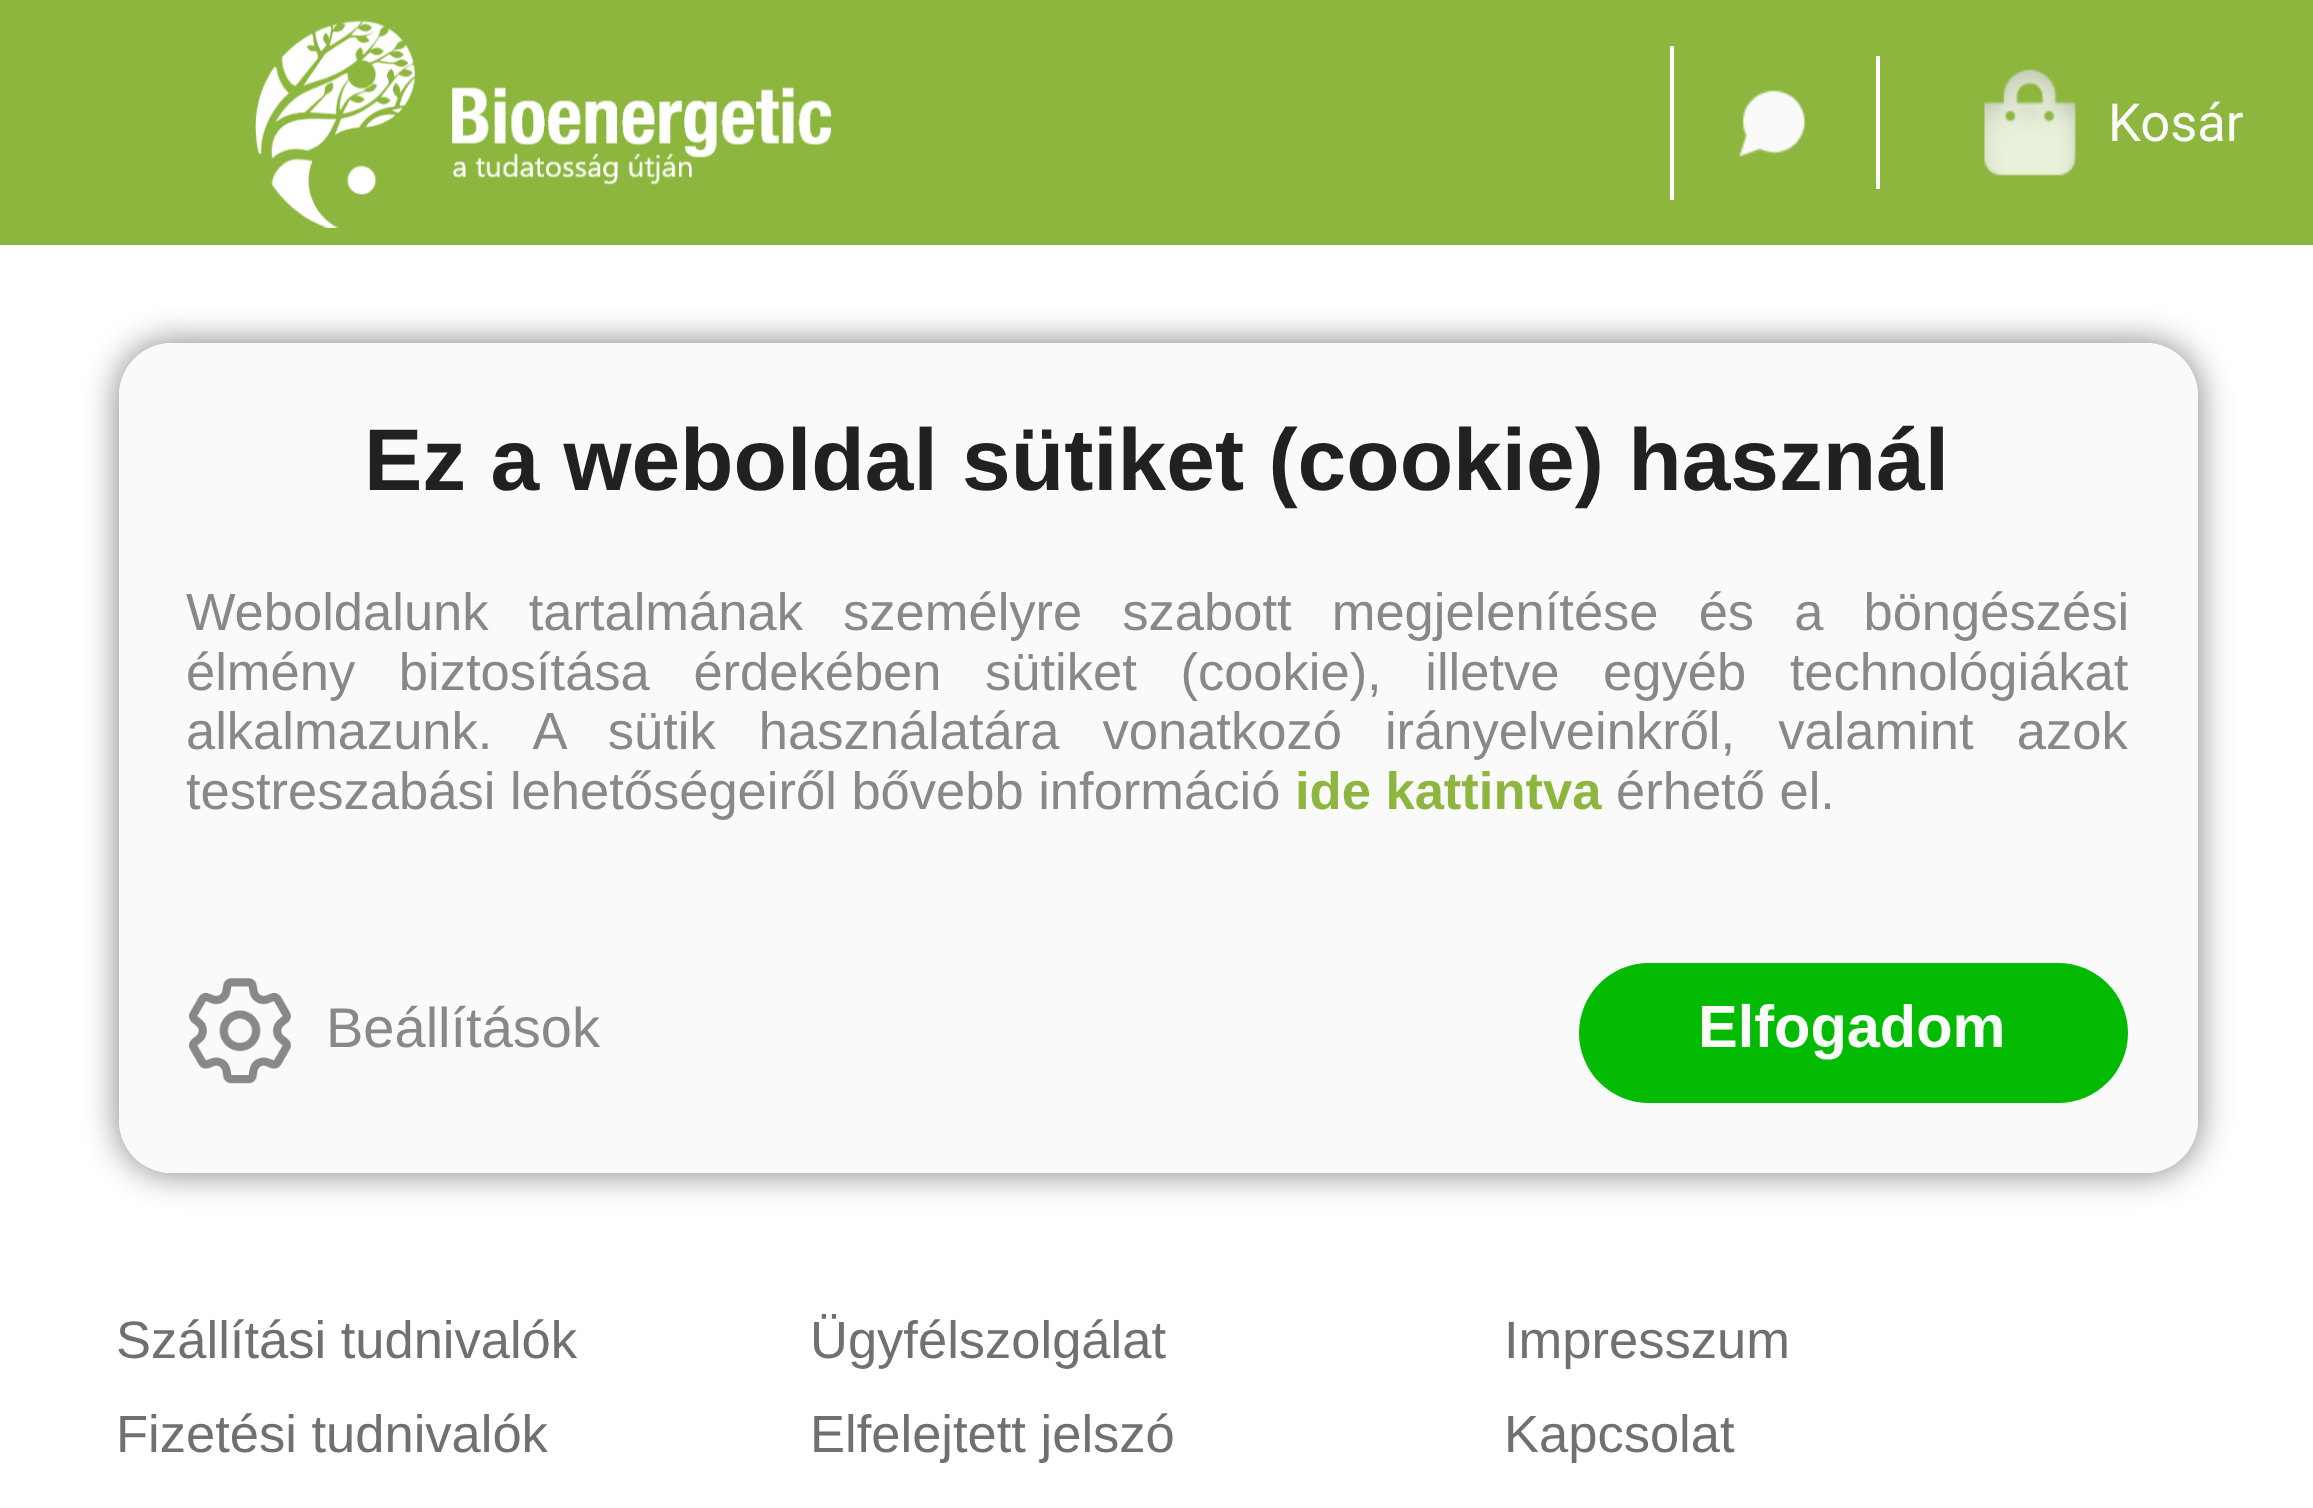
<svg xmlns="http://www.w3.org/2000/svg" width="2313" height="1508" viewBox="0 0 2313 1508">
  <defs>
    <clipPath id="clip1"><path d="M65 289H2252V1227H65ZM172 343H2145C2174.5 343 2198 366.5 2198 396V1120C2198 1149.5 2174.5 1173 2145 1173H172C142.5 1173 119 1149.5 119 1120V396C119 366.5 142.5 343 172 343Z" clip-rule="evenodd"/></clipPath>
    <filter id="blur1" x="-50%" y="-200%" width="200%" height="500%"><feGaussianBlur stdDeviation="17.5"/></filter>
  </defs>
  <rect width="100%" height="100%" fill="#ffffff"/>
  <rect x="0" y="0" width="2313" height="245" fill="#8db63f"/>
  <image x="254" y="20" width="578" height="208" href="img1.png"/>
  <rect x="1670" y="46" width="4" height="154" fill="#ffffff"/>
  <rect x="1876" y="56" width="4" height="133" fill="#ffffff"/>
  <image x="1739" y="90" width="67" height="68" href="img2.png"/>
  <image x="1984" y="69" width="92" height="107" href="img3.png"/>
  <text x="2108" y="141" font-family="Roboto" font-size="52.5" fill="#fbfbfb">Kosár</text>
  <text x="116" y="1358" font-family="Liberation Sans" font-size="52.5" fill="#707070">Szállítási tudnivalók</text>
  <text x="116" y="1452" font-family="Liberation Sans" font-size="52.5" fill="#707070">Fizetési tudnivalók</text>
  <text x="810" y="1358" font-family="Liberation Sans" font-size="52.5" fill="#707070">Ügyfélszolgálat</text>
  <text x="810" y="1452" font-family="Liberation Sans" font-size="52.5" fill="#707070">Elfelejtett jelszó</text>
  <text x="1504" y="1358" font-family="Liberation Sans" font-size="52.5" fill="#707070">Impresszum</text>
  <text x="1504" y="1452" font-family="Liberation Sans" font-size="52.5" fill="#707070">Kapcsolat</text>
  <g clip-path="url(#clip1)">
    <rect x="119" y="343" width="2079" height="830" rx="53" fill="#000000" fill-opacity="0.5" filter="url(#blur1)"/>
  </g>
  <rect x="119" y="343" width="2079" height="830" rx="53" fill="#fafafa"/>
  <text x="364" y="490" font-family="Liberation Sans" font-size="87.5" font-weight="bold" fill="#212121">Ez a weboldal sütiket (cookie) használ</text>
  <text x="186" y="630" word-spacing="25.5" font-family="Liberation Sans" font-size="52.5" fill="#888888">Weboldalunk tartalmának személyre szabott megjelenítése és a böngészési</text>
  <text x="186" y="690" word-spacing="29" font-family="Liberation Sans" font-size="52.5" fill="#888888">élmény biztosítása érdekében sütiket (cookie), illetve egyéb technológiákat</text>
  <text x="186" y="749" word-spacing="28.5" font-family="Liberation Sans" font-size="52.5" fill="#888888">alkalmazunk. A sütik használatára vonatkozó irányelveinkről, valamint azok</text>
  <text x="186" y="809" font-family="Liberation Sans" font-size="52.5" fill="#888888">testreszabási lehetőségeiről bővebb információ</text>
  <text x="1295" y="809" font-family="Liberation Sans" font-size="52.5" font-weight="bold" fill="#8db63f">ide kattintva</text>
  <text x="1616" y="809" font-family="Liberation Sans" font-size="52.5" fill="#888888">érhető el.</text>
  <image x="189" y="978" width="102" height="106" href="img4.png"/>
  <text x="326" y="1047" font-family="Liberation Sans" font-size="56" fill="#888888">Beállítások</text>
  <rect x="1579" y="963" width="549" height="140" rx="70" fill="#02bb02"/>
  <text x="1698" y="1047" font-family="Liberation Sans" font-size="59.5" font-weight="bold" fill="#fbfbfb">Elfogadom</text>
</svg>
